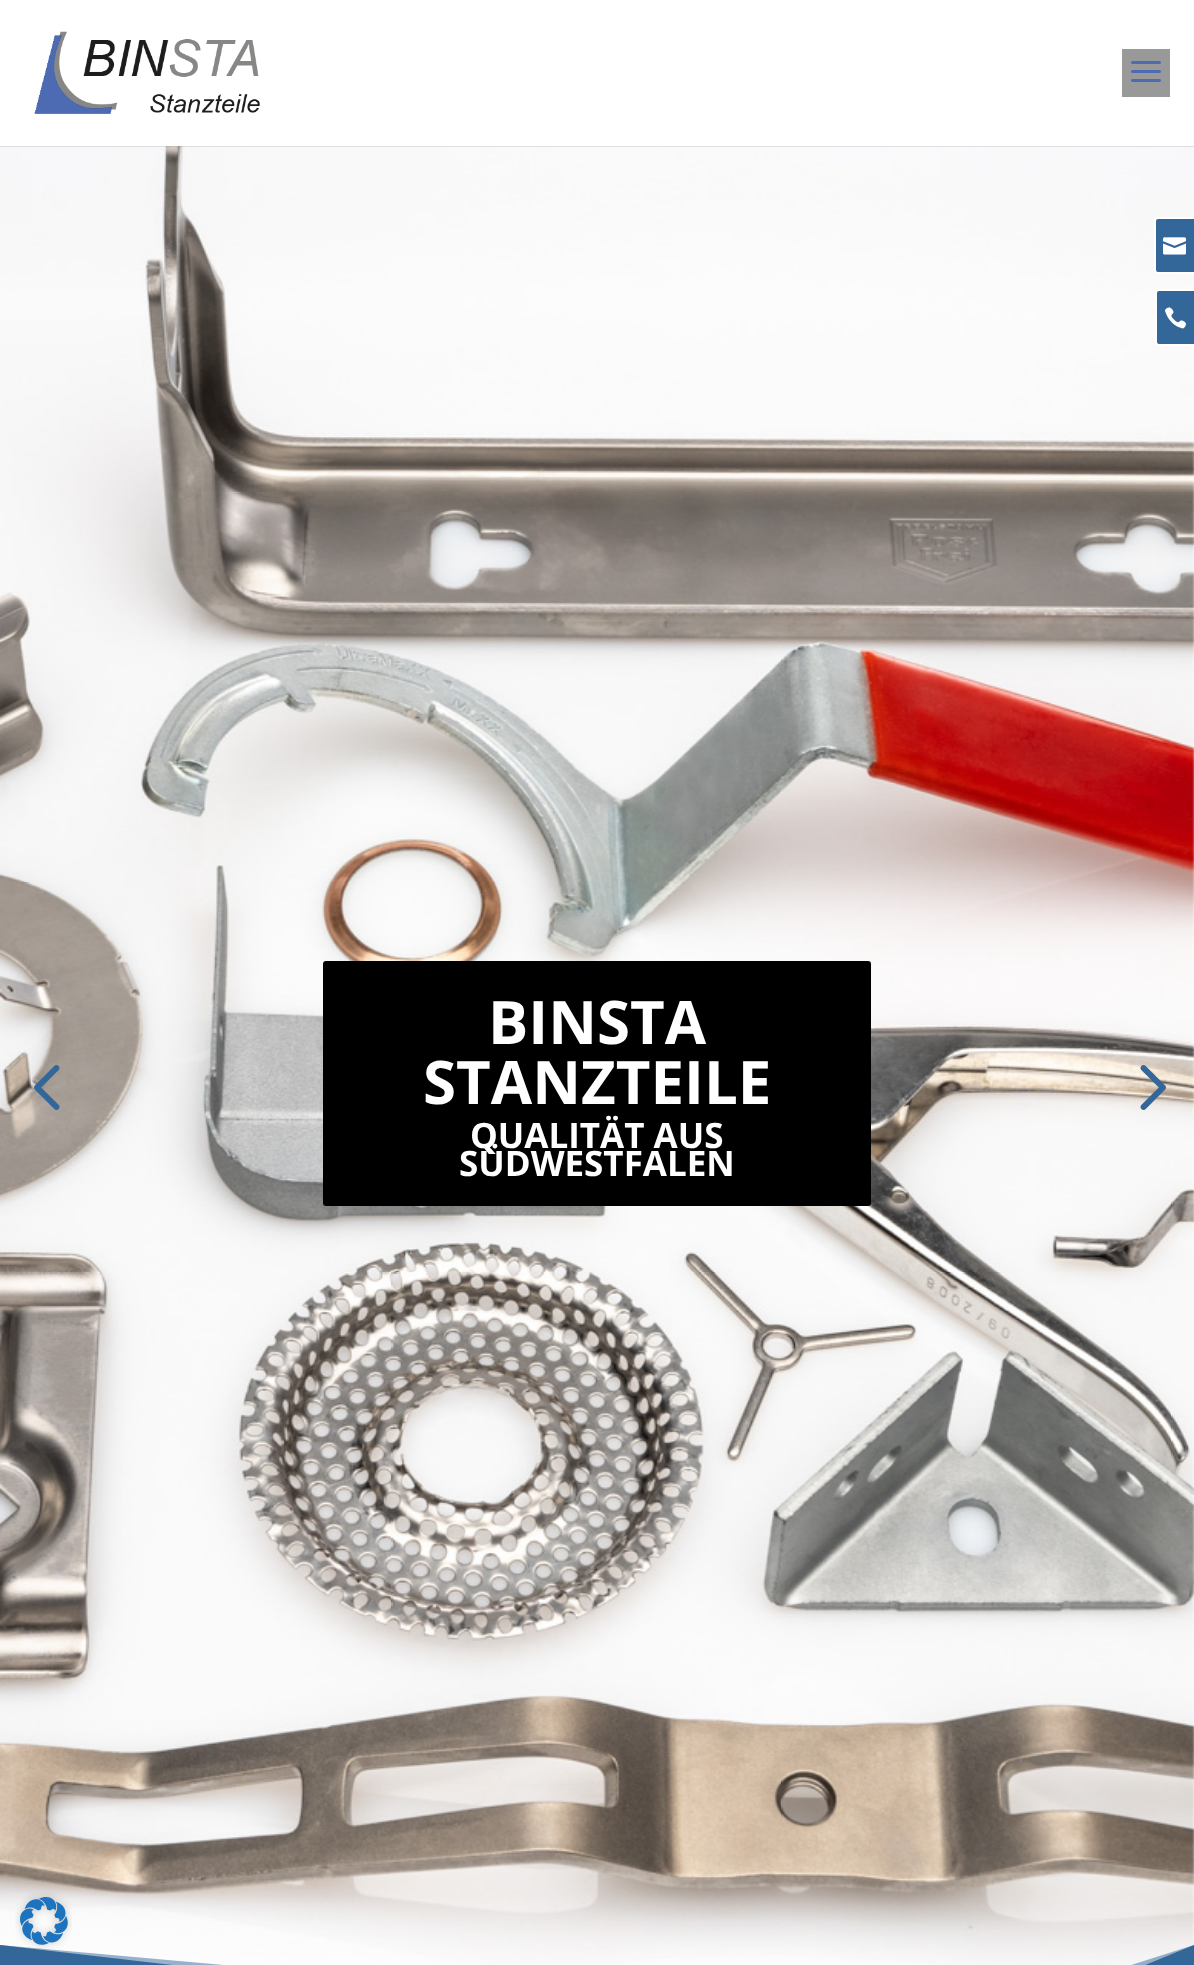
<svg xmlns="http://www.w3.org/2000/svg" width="1194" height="1965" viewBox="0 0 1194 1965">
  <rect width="100%" height="100%" fill="#ffffff"/>
  <image x="0" y="146" width="1194" height="1819" href="img5.png"/>
  <rect x="0" y="146" width="1194" height="1" fill="#000000" fill-opacity="0.1"/>
  <image x="34" y="31" width="226" height="83" href="img1.png"/>
  <rect x="1122" y="49" width="48" height="48" fill="#999999"/>
  <image x="1131" y="61" width="30" height="21" href="img2.png"/>
  <rect x="1155" y="218" width="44" height="55" rx="3" fill="#336699" stroke="#ffffff" stroke-width="2"/>
  <image x="1163" y="237" width="23" height="18" href="img3.png"/>
  <rect x="1156" y="290" width="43" height="55" rx="3" fill="#336699" stroke="#ffffff" stroke-width="2"/>
  <image x="1165" y="307" width="21" height="22" href="img4.png"/>
  <rect x="323" y="961" width="548" height="245" rx="3" fill="#000000"/>
  <text x="488" y="1044" font-family="Open Sans" font-size="60" font-weight="bold" fill="#ffffff">BINSTA</text>
  <text x="423" y="1104" font-family="Open Sans" font-size="60" font-weight="bold" fill="#ffffff">STANZTEILE</text>
  <text x="470" y="1148" font-family="Open Sans" font-size="35" font-weight="bold" fill="#ffffff">QUALITÄT AUS</text>
  <text x="459" y="1176" font-family="Open Sans" font-size="35" font-weight="bold" fill="#ffffff">SÜDWESTFALEN</text>
  <image x="34" y="1065" width="26" height="45" href="img6.png"/>
  <image x="1140" y="1065" width="26" height="45" href="img7.png"/>
  <path d="M1194 1945L946 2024C937 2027 927 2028 917 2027L0 1945V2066H1194Z" fill="#336699" fill-opacity="0.5"/>
  <path d="M1194 1945L950 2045C938 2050 925 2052 913 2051L0 1945V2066H1194Z" fill="#336699"/>
  <image x="15" y="1892" width="57" height="57" href="img8.png"/>
</svg>
